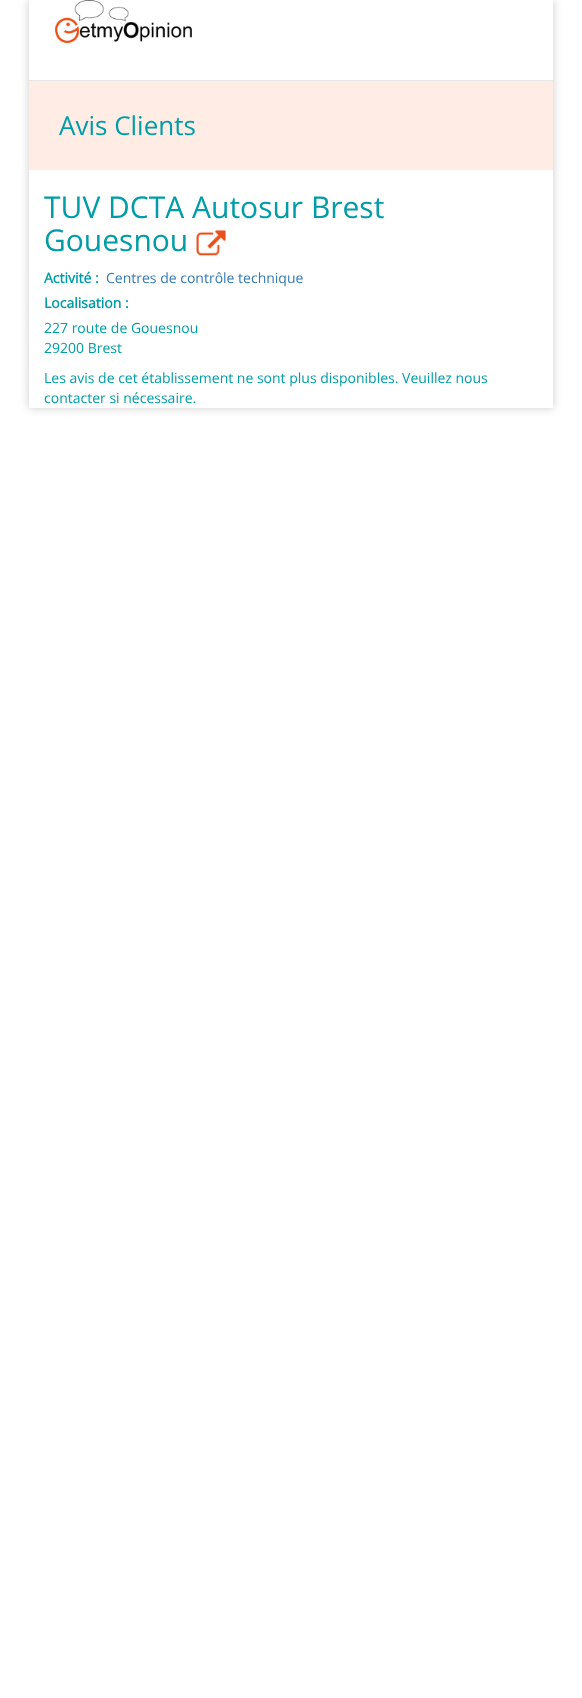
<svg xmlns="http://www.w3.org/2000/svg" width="582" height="1698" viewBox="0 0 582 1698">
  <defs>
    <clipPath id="clip1"><path d="M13 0H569V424H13ZM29 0H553V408H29Z" clip-rule="evenodd"/></clipPath>
    <filter id="blur1" x="-50%" y="-200%" width="200%" height="500%"><feGaussianBlur stdDeviation="5"/></filter>
  </defs>
  <rect width="100%" height="100%" fill="#ffffff"/>
  <g clip-path="url(#clip1)">
    <rect x="29" y="0" width="524" height="408" fill="#000000" fill-opacity="0.2" filter="url(#blur1)"/>
  </g>
  <rect x="29" y="80" width="524" height="1" fill="#e6e6e6"/>
  <image x="55" y="0" width="137" height="43" href="img1.png"/>
  <rect x="29" y="81" width="524" height="89" fill="#ffece5"/>
  <text x="59" y="135" font-family="Open Sans" font-size="26" fill="#009da8">Avis Clients</text>
  <text x="44" y="218" font-family="Open Sans" font-size="30" fill="#009da8">TUV DCTA Autosur Brest</text>
  <text x="44" y="251" font-family="Open Sans" font-size="30" fill="#009da8">Gouesnou</text>
  <image x="196" y="229" width="30" height="27" href="img2.png"/>
  <text x="44" y="283" font-family="Open Sans" font-size="14" font-weight="bold" fill="#009da8">Activité :</text>
  <text x="106" y="283" font-family="Open Sans" font-size="14" fill="#337ab7">Centres de contrôle technique</text>
  <text x="44" y="308" font-family="Open Sans" font-size="14" font-weight="bold" fill="#009da8">Localisation :</text>
  <text x="44" y="333" font-family="Open Sans" font-size="14" fill="#009da8">227 route de Gouesnou</text>
  <text x="44" y="353" font-family="Open Sans" font-size="14" fill="#009da8">29200 Brest</text>
  <text x="44" y="383" font-family="Open Sans" font-size="14" fill="#009da8">Les avis de cet établissement ne sont plus disponibles. Veuillez nous</text>
  <text x="44" y="403" font-family="Open Sans" font-size="14" fill="#009da8">contacter si nécessaire.</text>
</svg>
